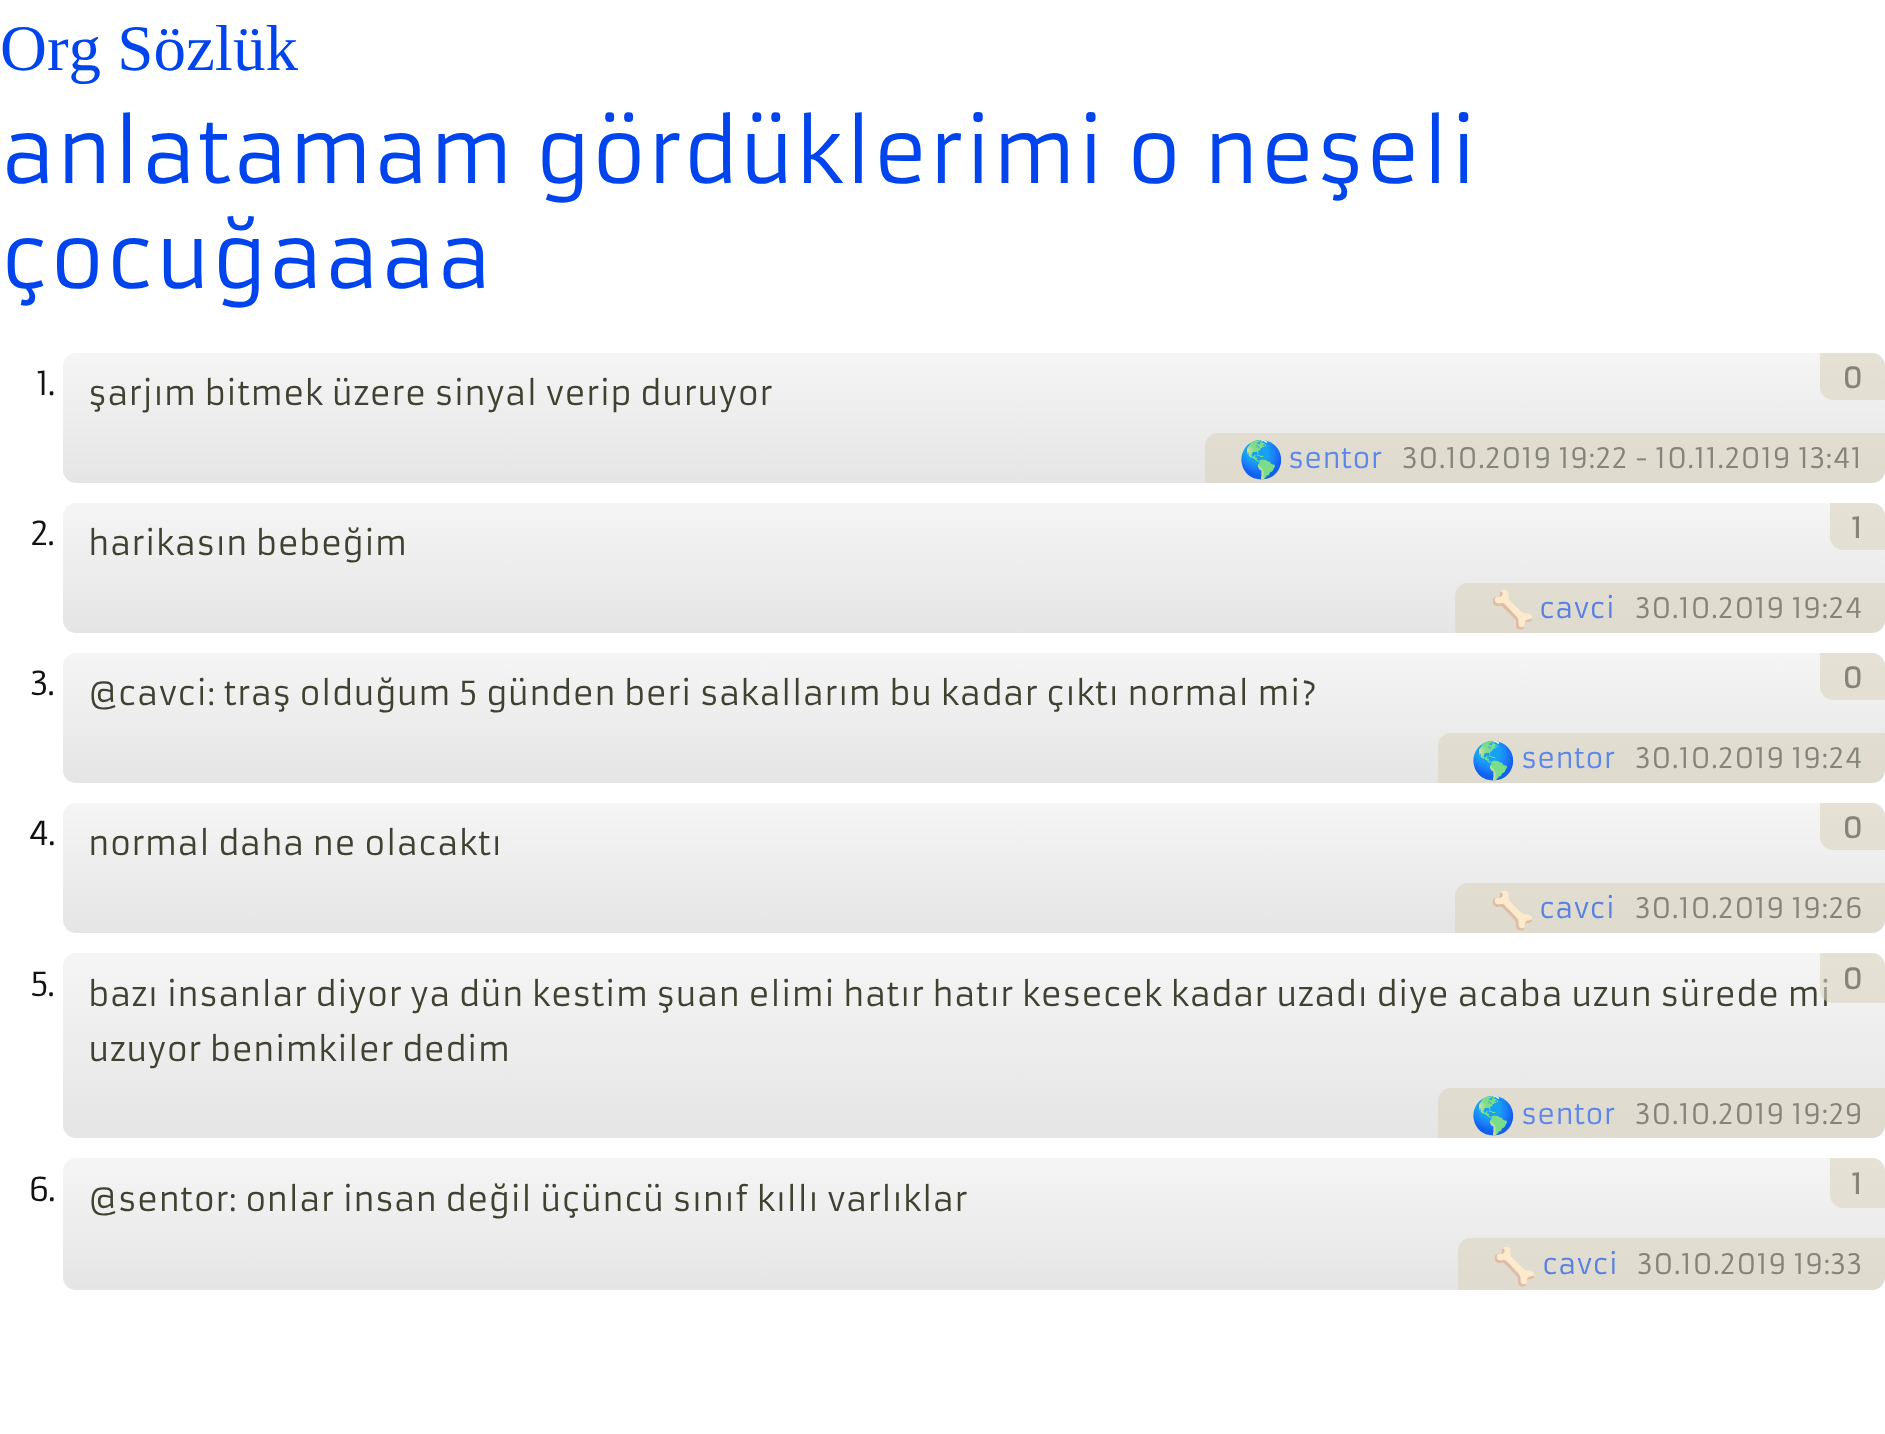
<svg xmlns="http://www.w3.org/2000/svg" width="1885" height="1434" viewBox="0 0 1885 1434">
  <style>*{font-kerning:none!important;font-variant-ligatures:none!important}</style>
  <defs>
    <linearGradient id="g1" gradientUnits="userSpaceOnUse" x1="974" y1="352" x2="974" y2="483"><stop offset="0" stop-color="#f5f5f5"/><stop offset="1" stop-color="#e5e5e5"/></linearGradient>
    <linearGradient id="g2" gradientUnits="userSpaceOnUse" x1="974" y1="502" x2="974" y2="633"><stop offset="0" stop-color="#f5f5f5"/><stop offset="1" stop-color="#e5e5e5"/></linearGradient>
    <linearGradient id="g3" gradientUnits="userSpaceOnUse" x1="974" y1="652" x2="974" y2="783"><stop offset="0" stop-color="#f5f5f5"/><stop offset="1" stop-color="#e5e5e5"/></linearGradient>
    <linearGradient id="g4" gradientUnits="userSpaceOnUse" x1="974" y1="802" x2="974" y2="933"><stop offset="0" stop-color="#f5f5f5"/><stop offset="1" stop-color="#e5e5e5"/></linearGradient>
    <linearGradient id="g5" gradientUnits="userSpaceOnUse" x1="974" y1="952" x2="974" y2="1138"><stop offset="0" stop-color="#f5f5f5"/><stop offset="1" stop-color="#e5e5e5"/></linearGradient>
    <linearGradient id="g6" gradientUnits="userSpaceOnUse" x1="974" y1="1157" x2="974" y2="1290"><stop offset="0" stop-color="#f5f5f5"/><stop offset="1" stop-color="#e5e5e5"/></linearGradient>
  </defs>
  <rect width="100%" height="100%" fill="#ffffff"/>
  <text x="0" y="70" font-family="Liberation Serif" font-size="65" fill="#0044ee">Org Sözlük</text>
  <text x="0" y="183" font-family="Armata" font-size="84.5" fill="#0044ee">anlatamam gördüklerimi o neşeli</text>
  <text x="0" y="288" font-family="Armata" font-size="84.5" fill="#0044ee">çocuğaaaa</text>
  <rect x="63" y="353" width="1822" height="130" rx="13" fill="url(#g1)"/>
  <text x="36" y="395" font-family="Armata" font-size="32.5" letter-spacing="-2" fill="#111111">1.</text>
  <text x="88" y="405" font-family="Armata" font-size="32.5" fill="#414131">şarjım bitmek üzere sinyal verip duruyor</text>
  <path d="M1820 353H1872C1879 353 1885 359 1885 366V400H1833C1826 400 1820 394 1820 387Z" fill="#dad3c0" fill-opacity="0.6"/>
  <text x="1842" y="388" font-family="Armata" font-size="27.6" font-weight="bold" fill="#84847a">0</text>
  <path d="M1218 433H1885V470C1885 477 1879 483 1872 483H1205V446C1205 439 1211 433 1218 433Z" fill="#dad3c0" fill-opacity="0.6"/>
  <text x="1239" y="472" font-family="Noto Color Emoji" font-size="36" fill="#5981e2">🌎</text>
  <text x="1288" y="468" font-family="Armata" font-size="27.6" fill="#5d86ec">sentor</text>
  <text x="1402" y="468" font-family="Armata" font-size="27.6" fill="#84847a">30.10.2019 19:22 - 10.11.2019 13:41</text>
  <rect x="63" y="503" width="1822" height="130" rx="13" fill="url(#g2)"/>
  <text x="30" y="545" font-family="Armata" font-size="32.5" letter-spacing="-2" fill="#111111">2.</text>
  <text x="88" y="555" font-family="Armata" font-size="32.5" fill="#414131">harikasın bebeğim</text>
  <path d="M1830 503H1872C1879 503 1885 509 1885 516V550H1843C1836 550 1830 544 1830 537Z" fill="#dad3c0" fill-opacity="0.6"/>
  <text x="1851" y="538" font-family="Armata" font-size="27.6" font-weight="bold" fill="#84847a">1</text>
  <path d="M1468 583H1885V620C1885 627 1879 633 1872 633H1455V596C1455 589 1461 583 1468 583Z" fill="#dad3c0" fill-opacity="0.6"/>
  <text x="1490" y="622" font-family="Noto Color Emoji" font-size="36" fill="#5981e2">🦴</text>
  <text x="1539" y="618" font-family="Armata" font-size="27.6" fill="#5981e2">cavci</text>
  <text x="1635" y="618" font-family="Armata" font-size="27.6" fill="#84847a">30.10.2019 19:24</text>
  <rect x="63" y="653" width="1822" height="130" rx="13" fill="url(#g3)"/>
  <text x="30" y="695" font-family="Armata" font-size="32.5" letter-spacing="-2" fill="#111111">3.</text>
  <text x="88" y="705" font-family="Armata" font-size="32.5" fill="#414131">@cavci: traş olduğum 5 günden beri sakallarım bu kadar çıktı normal mi?</text>
  <path d="M1820 653H1872C1879 653 1885 659 1885 666V700H1833C1826 700 1820 694 1820 687Z" fill="#dad3c0" fill-opacity="0.6"/>
  <text x="1842" y="688" font-family="Armata" font-size="27.6" font-weight="bold" fill="#84847a">0</text>
  <path d="M1451 733H1885V770C1885 777 1879 783 1872 783H1438V746C1438 739 1444 733 1451 733Z" fill="#dad3c0" fill-opacity="0.6"/>
  <text x="1471" y="773" font-family="Noto Color Emoji" font-size="36" fill="#5981e2">🌎</text>
  <text x="1521" y="768" font-family="Armata" font-size="27.6" fill="#5d86ec">sentor</text>
  <text x="1635" y="768" font-family="Armata" font-size="27.6" fill="#84847a">30.10.2019 19:24</text>
  <rect x="63" y="803" width="1822" height="130" rx="13" fill="url(#g4)"/>
  <text x="28" y="845" font-family="Armata" font-size="32.5" letter-spacing="-2" fill="#111111">4.</text>
  <text x="88" y="855" font-family="Armata" font-size="32.5" fill="#414131">normal daha ne olacaktı</text>
  <path d="M1820 803H1872C1879 803 1885 809 1885 816V850H1833C1826 850 1820 844 1820 837Z" fill="#dad3c0" fill-opacity="0.6"/>
  <text x="1842" y="838" font-family="Armata" font-size="27.6" font-weight="bold" fill="#84847a">0</text>
  <path d="M1468 883H1885V920C1885 927 1879 933 1872 933H1455V896C1455 889 1461 883 1468 883Z" fill="#dad3c0" fill-opacity="0.6"/>
  <text x="1490" y="923" font-family="Noto Color Emoji" font-size="36" fill="#5981e2">🦴</text>
  <text x="1539" y="918" font-family="Armata" font-size="27.6" fill="#5981e2">cavci</text>
  <text x="1635" y="918" font-family="Armata" font-size="27.6" fill="#84847a">30.10.2019 19:26</text>
  <rect x="63" y="953" width="1822" height="185" rx="13" fill="url(#g5)"/>
  <text x="30" y="996" font-family="Armata" font-size="32.5" letter-spacing="-2" fill="#111111">5.</text>
  <text x="88" y="1006" font-family="Armata" font-size="32.5" fill="#414131">bazı insanlar diyor ya dün kestim şuan elimi hatır hatır kesecek kadar uzadı diye acaba uzun sürede mi</text>
  <path d="M1820 953H1872C1879 953 1885 959 1885 966V1003H1833C1826 1003 1820 997 1820 990Z" fill="#dad3c0" fill-opacity="0.6"/>
  <text x="1842" y="989" font-family="Armata" font-size="27.6" font-weight="bold" fill="#84847a">0</text>
  <path d="M1451 1088H1885V1125C1885 1132 1879 1138 1872 1138H1438V1101C1438 1094 1444 1088 1451 1088Z" fill="#dad3c0" fill-opacity="0.6"/>
  <text x="1471" y="1128" font-family="Noto Color Emoji" font-size="36" fill="#5981e2">🌎</text>
  <text x="1521" y="1124" font-family="Armata" font-size="27.6" fill="#5d86ec">sentor</text>
  <text x="1635" y="1124" font-family="Armata" font-size="27.6" fill="#84847a">30.10.2019 19:29</text>
  <text x="88" y="1061" font-family="Armata" font-size="32.5" fill="#414131">uzuyor benimkiler dedim</text>
  <rect x="63" y="1158" width="1822" height="132" rx="13" fill="url(#g6)"/>
  <text x="28" y="1201" font-family="Armata" font-size="32.5" letter-spacing="-2" fill="#111111">6.</text>
  <text x="88" y="1211" font-family="Armata" font-size="32.5" fill="#414131">@sentor: onlar insan değil üçüncü sınıf kıllı varlıklar</text>
  <path d="M1830 1158H1872C1879 1158 1885 1164 1885 1171V1208H1843C1836 1208 1830 1202 1830 1195Z" fill="#dad3c0" fill-opacity="0.6"/>
  <text x="1851" y="1194" font-family="Armata" font-size="27.6" font-weight="bold" fill="#84847a">1</text>
  <path d="M1471 1238H1885V1277C1885 1284 1879 1290 1872 1290H1458V1251C1458 1244 1464 1238 1471 1238Z" fill="#dad3c0" fill-opacity="0.6"/>
  <text x="1492" y="1279" font-family="Noto Color Emoji" font-size="36" fill="#5981e2">🦴</text>
  <text x="1542" y="1274" font-family="Armata" font-size="27.6" fill="#5981e2">cavci</text>
  <text x="1637" y="1274" font-family="Armata" font-size="27.6" fill="#84847a">30.10.2019 19:33</text>
</svg>
